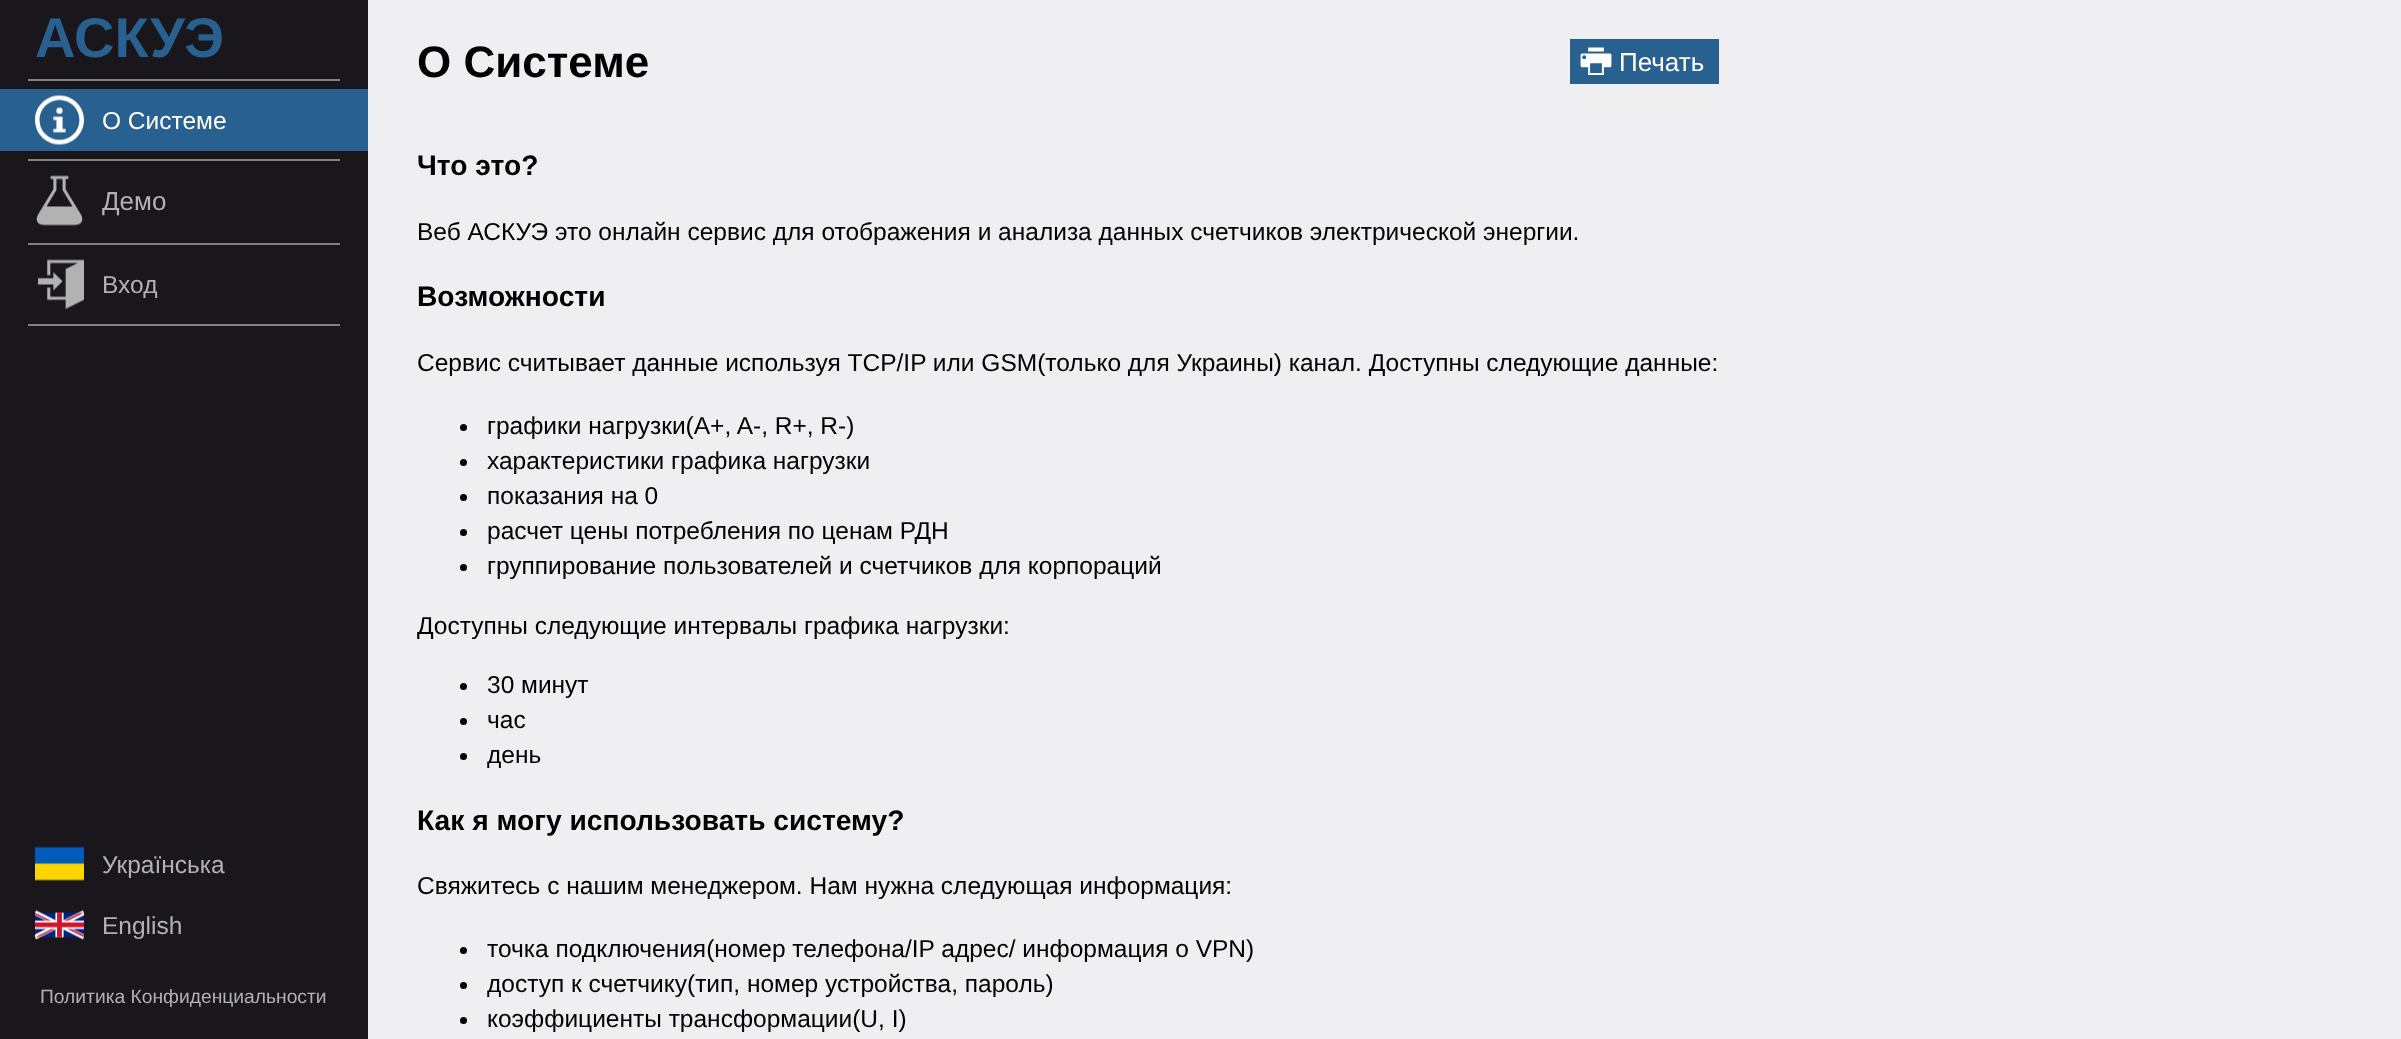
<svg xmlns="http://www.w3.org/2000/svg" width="2401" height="1039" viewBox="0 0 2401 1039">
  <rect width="100%" height="100%" fill="#efeef1"/>
  <rect x="0" y="0" width="368" height="1039" fill="#19171c"/>
  <text x="35" y="57" font-family="Liberation Sans" font-size="56" font-weight="bold" fill="#286090">АСКУЭ</text>
  <rect x="28" y="79" width="312" height="2" fill="#818181"/>
  <rect x="0" y="89" width="368" height="62" fill="#286090"/>
  <image x="35" y="95" width="49" height="50" href="img1.png"/>
  <text x="102" y="129" font-family="Liberation Sans" font-size="24.5" fill="#ffffff">О Системе</text>
  <rect x="28" y="159" width="312" height="2" fill="#818181"/>
  <image x="36" y="175" width="47" height="51" href="img2.png"/>
  <text x="102" y="210" font-family="Liberation Sans" font-size="26" fill="#b2b2b2">Демо</text>
  <rect x="28" y="243" width="312" height="2" fill="#818181"/>
  <image x="38" y="259" width="46" height="51" href="img3.png"/>
  <text x="102" y="293" font-family="Liberation Sans" font-size="24.5" fill="#b2b2b2">Вход</text>
  <rect x="28" y="324" width="312" height="2" fill="#818181"/>
  <image x="35" y="846" width="49" height="35" href="img4.png"/>
  <text x="102" y="873" font-family="Liberation Sans" font-size="24.5" fill="#b2b2b2">Українська</text>
  <image x="35" y="910" width="49" height="30" href="img5.png"/>
  <text x="102" y="934" font-family="Liberation Sans" font-size="24.5" fill="#b2b2b2">English</text>
  <text x="40" y="1003" font-family="Liberation Sans" font-size="19.25" fill="#b2b2b2">Политика Конфиденциальности</text>
  <text x="417" y="77" font-family="Liberation Sans" font-size="44" font-weight="bold" fill="#000000">О Системе</text>
  <rect x="1570" y="39" width="149" height="45" fill="#286090"/>
  <image x="1580" y="47" width="32" height="28" href="img6.png"/>
  <text x="1619" y="71" font-family="Liberation Sans" font-size="26" fill="#ffffff">Печать</text>
  <text x="417" y="175" font-family="Liberation Sans" font-size="28.2" font-weight="bold" fill="#000000">Что это?</text>
  <text x="417" y="240" font-family="Liberation Sans" font-size="24.5" fill="#000000">Веб АСКУЭ это онлайн сервис для отображения и анализа данных счетчиков электрической энергии.</text>
  <text x="417" y="306" font-family="Liberation Sans" font-size="28.2" font-weight="bold" fill="#000000">Возможности</text>
  <text x="417" y="371" font-family="Liberation Sans" font-size="24.5" fill="#000000">Сервис считывает данные используя TCP/IP или GSM(только для Украины) канал. Доступны следующие данные:</text>
  <circle cx="463.5" cy="427.5" r="3.5" fill="#000000"/>
  <text x="487" y="434" font-family="Liberation Sans" font-size="24.5" fill="#000000">графики нагрузки(A+, A-, R+, R-)</text>
  <circle cx="463.5" cy="462.5" r="3.5" fill="#000000"/>
  <text x="487" y="469" font-family="Liberation Sans" font-size="24.5" fill="#000000">характеристики графика нагрузки</text>
  <circle cx="463.5" cy="497.5" r="3.5" fill="#000000"/>
  <text x="487" y="504" font-family="Liberation Sans" font-size="24.5" fill="#000000">показания на 0</text>
  <circle cx="463.5" cy="532.5" r="3.5" fill="#000000"/>
  <text x="487" y="539" font-family="Liberation Sans" font-size="24.5" fill="#000000">расчет цены потребления по ценам РДН</text>
  <circle cx="463.5" cy="567.5" r="3.5" fill="#000000"/>
  <text x="487" y="574" font-family="Liberation Sans" font-size="24.5" fill="#000000">группирование пользователей и счетчиков для корпораций</text>
  <text x="417" y="634" font-family="Liberation Sans" font-size="24.5" fill="#000000">Доступны следующие интервалы графика нагрузки:</text>
  <circle cx="463.5" cy="686.5" r="3.5" fill="#000000"/>
  <text x="487" y="693" font-family="Liberation Sans" font-size="24.5" fill="#000000">30 минут</text>
  <circle cx="463.5" cy="721.5" r="3.5" fill="#000000"/>
  <text x="487" y="728" font-family="Liberation Sans" font-size="24.5" fill="#000000">час</text>
  <circle cx="463.5" cy="756.5" r="3.5" fill="#000000"/>
  <text x="487" y="763" font-family="Liberation Sans" font-size="24.5" fill="#000000">день</text>
  <text x="417" y="830" font-family="Liberation Sans" font-size="28.2" font-weight="bold" fill="#000000">Как я могу использовать систему?</text>
  <text x="417" y="894" font-family="Liberation Sans" font-size="24.5" fill="#000000">Свяжитесь с нашим менеджером. Нам нужна следующая информация:</text>
  <circle cx="463.5" cy="950.5" r="3.5" fill="#000000"/>
  <text x="487" y="957" font-family="Liberation Sans" font-size="24.5" fill="#000000">точка подключения(номер телефона/IP адрес/ информация о VPN)</text>
  <circle cx="463.5" cy="985.5" r="3.5" fill="#000000"/>
  <text x="487" y="992" font-family="Liberation Sans" font-size="24.5" fill="#000000">доступ к счетчику(тип, номер устройства, пароль)</text>
  <circle cx="463.5" cy="1020.5" r="3.5" fill="#000000"/>
  <text x="487" y="1027" font-family="Liberation Sans" font-size="24.5" fill="#000000">коэффициенты трансформации(U, I)</text>
</svg>
